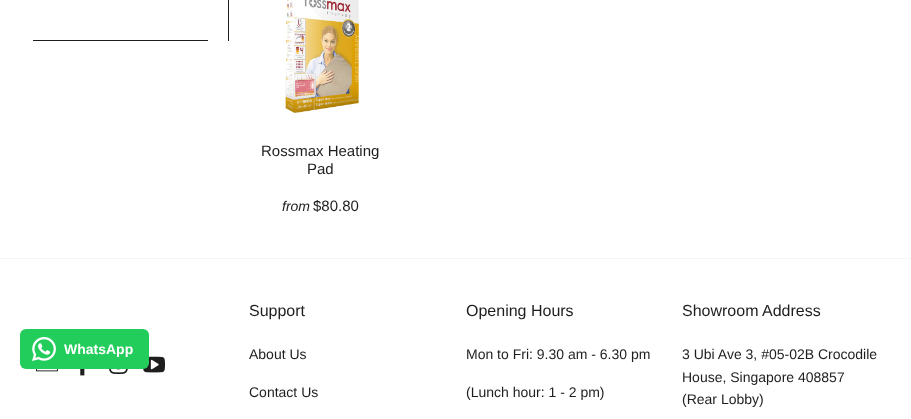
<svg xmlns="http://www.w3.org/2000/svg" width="911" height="419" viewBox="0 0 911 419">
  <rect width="100%" height="100%" fill="#ffffff"/>
  <rect x="228" y="0" width="1" height="41" fill="#1e1e1e"/>
  <rect x="33" y="40" width="175" height="1" fill="#1e1e1e"/>
  <image x="285" y="0" width="74" height="113" href="img1.png"/>
  <text x="261" y="156" font-family="Liberation Sans" font-size="15" fill="#1e1e1e">Rossmax Heating</text>
  <text x="307" y="174" font-family="Liberation Sans" font-size="15" fill="#1e1e1e">Pad</text>
  <text x="282" y="211" font-family="Liberation Sans" font-size="14" font-style="italic" fill="#1e1e1e">from</text>
  <text x="313" y="211" font-family="Liberation Sans" font-size="15" fill="#1e1e1e">$80.80</text>
  <image x="143" y="356" width="22" height="17" href="img6.png"/>
  <rect x="20" y="329" width="129" height="40" rx="6" fill="#22cd5b"/>
  <image x="32" y="337" width="24" height="24" href="img2.png"/>
  <text x="64" y="354" font-family="Liberation Sans" font-size="14" font-weight="bold" fill="#ffffff">WhatsApp</text>
  <rect x="0" y="258" width="911" height="1" fill="#f5f5f5"/>
  <image x="36" y="369" width="22" height="3" href="img3.png"/>
  <image x="80" y="369" width="5" height="7" href="img4.png"/>
  <image x="109" y="369" width="19" height="5" href="img5.png"/>
  <text x="249" y="316" font-family="Liberation Sans" font-size="16" fill="#1e1e1e">Support</text>
  <text x="249" y="359" font-family="Liberation Sans" font-size="14" fill="#1e1e1e">About Us</text>
  <text x="249" y="397" font-family="Liberation Sans" font-size="14" fill="#1e1e1e">Contact Us</text>
  <text x="466" y="316" font-family="Liberation Sans" font-size="16" fill="#1e1e1e">Opening Hours</text>
  <text x="466" y="359" font-family="Liberation Sans" font-size="14" fill="#1e1e1e">Mon to Fri: 9.30 am - 6.30 pm</text>
  <text x="466" y="397" font-family="Liberation Sans" font-size="14" fill="#1e1e1e">(Lunch hour: 1 - 2 pm)</text>
  <text x="682" y="316" font-family="Liberation Sans" font-size="16" fill="#1e1e1e">Showroom Address</text>
  <text x="682" y="359" font-family="Liberation Sans" font-size="14" fill="#1e1e1e">3 Ubi Ave 3, #05-02B Crocodile</text>
  <text x="682" y="382" font-family="Liberation Sans" font-size="14" fill="#1e1e1e">House, Singapore 408857</text>
  <text x="682" y="404" font-family="Liberation Sans" font-size="14" fill="#1e1e1e">(Rear Lobby)</text>
</svg>
